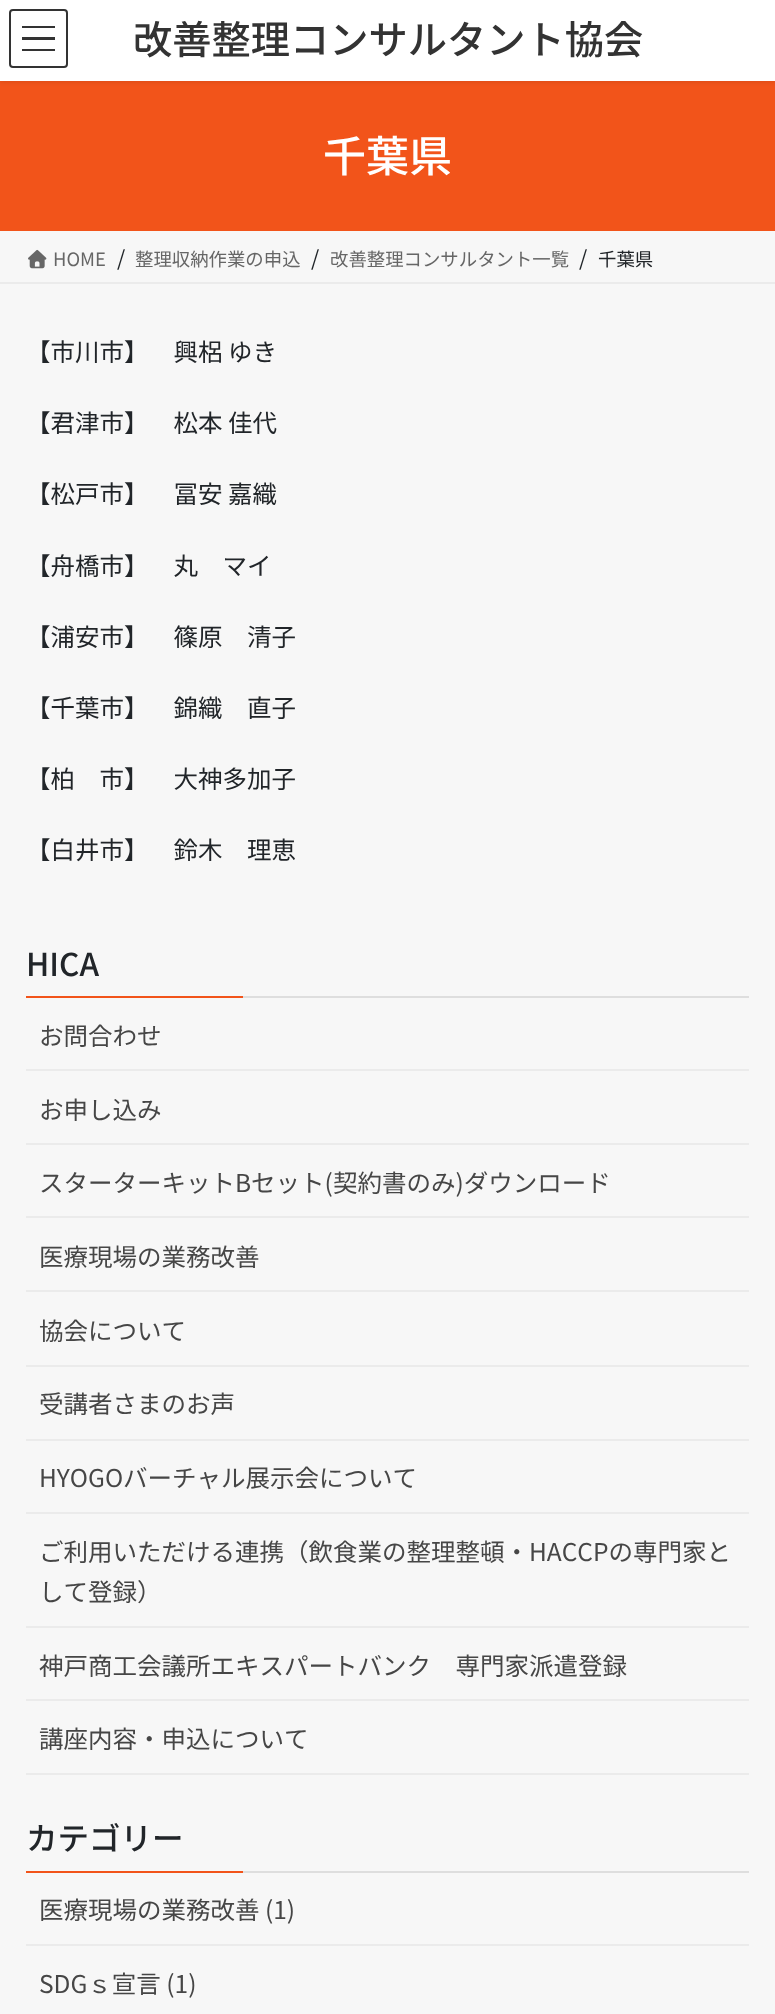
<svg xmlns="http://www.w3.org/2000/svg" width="775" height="2014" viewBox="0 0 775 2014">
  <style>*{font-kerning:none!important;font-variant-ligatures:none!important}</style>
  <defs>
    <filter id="blur1" x="-50%" y="-200%" width="200%" height="500%"><feGaussianBlur stdDeviation="2.5"/></filter>
  </defs>
  <rect width="100%" height="100%" fill="#f7f7f7"/>
  <rect x="0" y="81" width="775" height="150" fill="#f2541a"/>
  <rect x="0" y="2" width="775" height="80" fill="#000000" fill-opacity="0.1" filter="url(#blur1)"/>
  <rect x="0" y="0" width="775" height="81" fill="#ffffff"/>
  <rect x="22" y="26" width="33" height="2" fill="#333333"/>
  <rect x="22" y="37" width="33" height="3" fill="#333333"/>
  <rect x="22" y="49" width="33" height="2" fill="#333333"/>
  <rect x="10" y="10" width="57" height="57" rx="3" fill="none" stroke="#333333" stroke-width="2"/>
  <text x="133" y="54" font-family="Noto Sans JP" font-size="39.25" font-weight="500" fill="#333333">改善整理コンサルタント協会</text>
  <text x="323" y="172" font-family="Noto Sans JP" font-size="43" font-weight="500" fill="#ffffff">千葉県</text>
  <rect x="0" y="282" width="775" height="2" fill="#ebebeb"/>
  <image x="28" y="249" width="19" height="20" href="img1.png"/>
  <text x="53" y="266" font-family="Noto Sans JP" font-size="18.4" fill="#666666">HOME</text>
  <text x="117" y="266" font-family="Noto Sans JP" font-size="21" fill="#212529">/</text>
  <text x="135" y="266" font-family="Noto Sans JP" font-size="18.4" fill="#666666">整理収納作業の申込</text>
  <text x="311" y="266" font-family="Noto Sans JP" font-size="21" fill="#212529">/</text>
  <text x="330" y="266" font-family="Noto Sans JP" font-size="18.4" fill="#666666">改善整理コンサルタント一覧</text>
  <text x="579" y="266" font-family="Noto Sans JP" font-size="21" fill="#212529">/</text>
  <text x="598" y="266" font-family="Noto Sans JP" font-size="18.4" fill="#212529">千葉県</text>
  <text x="26" y="361" font-family="Noto Sans JP" font-size="24.5" fill="#212529">【市川市】</text>
  <text x="149" y="361" font-family="Noto Sans JP" font-size="24.5" fill="#212529">　興梠 ゆき</text>
  <text x="26" y="432" font-family="Noto Sans JP" font-size="24.5" fill="#212529">【君津市】</text>
  <text x="149" y="432" font-family="Noto Sans JP" font-size="24.5" fill="#212529">　松本 佳代</text>
  <text x="26" y="503" font-family="Noto Sans JP" font-size="24.5" fill="#212529">【松戸市】</text>
  <text x="149" y="503" font-family="Noto Sans JP" font-size="24.5" fill="#212529">　冨安 嘉織</text>
  <text x="26" y="575" font-family="Noto Sans JP" font-size="24.5" fill="#212529">【舟橋市】</text>
  <text x="149" y="575" font-family="Noto Sans JP" font-size="24.5" fill="#212529">　丸　マイ</text>
  <text x="26" y="646" font-family="Noto Sans JP" font-size="24.5" fill="#212529">【浦安市】</text>
  <text x="149" y="646" font-family="Noto Sans JP" font-size="24.5" fill="#212529">　篠原　清子</text>
  <text x="26" y="717" font-family="Noto Sans JP" font-size="24.5" fill="#212529">【千葉市】</text>
  <text x="149" y="717" font-family="Noto Sans JP" font-size="24.5" fill="#212529">　錦織　直子</text>
  <text x="26" y="788" font-family="Noto Sans JP" font-size="24.5" fill="#212529">【柏　市】</text>
  <text x="149" y="788" font-family="Noto Sans JP" font-size="24.5" fill="#212529">　大神多加子</text>
  <text x="26" y="859" font-family="Noto Sans JP" font-size="24.5" fill="#212529">【白井市】</text>
  <text x="149" y="859" font-family="Noto Sans JP" font-size="24.5" fill="#212529">　鈴木　理恵</text>
  <rect x="243" y="996" width="506" height="2" fill="#dedede"/>
  <text x="26" y="976" font-family="Noto Sans JP" font-size="31.5" font-weight="500" fill="#212529">HICA</text>
  <rect x="26" y="996" width="217" height="2" fill="#f2541a"/>
  <rect x="26" y="1069" width="723" height="2" fill="#ebebeb"/>
  <text x="39" y="1045" font-family="Noto Sans JP" font-size="24.5" fill="#464646">お問合わせ</text>
  <rect x="26" y="1143" width="723" height="2" fill="#ebebeb"/>
  <text x="39" y="1119" font-family="Noto Sans JP" font-size="24.5" fill="#464646">お申し込み</text>
  <rect x="26" y="1216" width="723" height="2" fill="#ebebeb"/>
  <text x="39" y="1192" font-family="Noto Sans JP" font-size="24.5" fill="#464646">スターターキットBセット(契約書のみ)ダウンロード</text>
  <rect x="26" y="1290" width="723" height="2" fill="#ebebeb"/>
  <text x="39" y="1266" font-family="Noto Sans JP" font-size="24.5" fill="#464646">医療現場の業務改善</text>
  <rect x="26" y="1365" width="723" height="2" fill="#ebebeb"/>
  <text x="39" y="1340" font-family="Noto Sans JP" font-size="24.5" fill="#464646">協会について</text>
  <rect x="26" y="1439" width="723" height="2" fill="#ebebeb"/>
  <text x="39" y="1413" font-family="Noto Sans JP" font-size="24.5" fill="#464646">受講者さまのお声</text>
  <rect x="26" y="1512" width="723" height="2" fill="#ebebeb"/>
  <text x="39" y="1487" font-family="Noto Sans JP" font-size="24.5" fill="#464646">HYOGOバーチャル展示会について</text>
  <rect x="26" y="1626" width="723" height="2" fill="#ebebeb"/>
  <text x="39" y="1561" font-family="Noto Sans JP" font-size="24.5" fill="#464646">ご利用いただける連携（飲食業の整理整頓・HACCPの専門家と</text>
  <text x="39" y="1601" font-family="Noto Sans JP" font-size="24.5" fill="#464646">して登録）</text>
  <rect x="26" y="1699" width="723" height="2" fill="#ebebeb"/>
  <text x="39" y="1675" font-family="Noto Sans JP" font-size="24.5" fill="#464646">神戸商工会議所エキスパートバンク　専門家派遣登録</text>
  <rect x="26" y="1773" width="723" height="2" fill="#ebebeb"/>
  <text x="39" y="1748" font-family="Noto Sans JP" font-size="24.5" fill="#464646">講座内容・申込について</text>
  <rect x="243" y="1871" width="506" height="2" fill="#dedede"/>
  <text x="26" y="1850" font-family="Noto Sans JP" font-size="31.5" font-weight="500" fill="#212529">カテゴリー</text>
  <rect x="26" y="1871" width="217" height="2" fill="#f2541a"/>
  <rect x="26" y="1944" width="723" height="2" fill="#ebebeb"/>
  <text x="39" y="1919" font-family="Noto Sans JP" font-size="24.5" fill="#464646">医療現場の業務改善 (1)</text>
  <text x="39" y="1993" font-family="Noto Sans JP" font-size="24.5" fill="#464646">SDGｓ宣言 (1)</text>
</svg>
